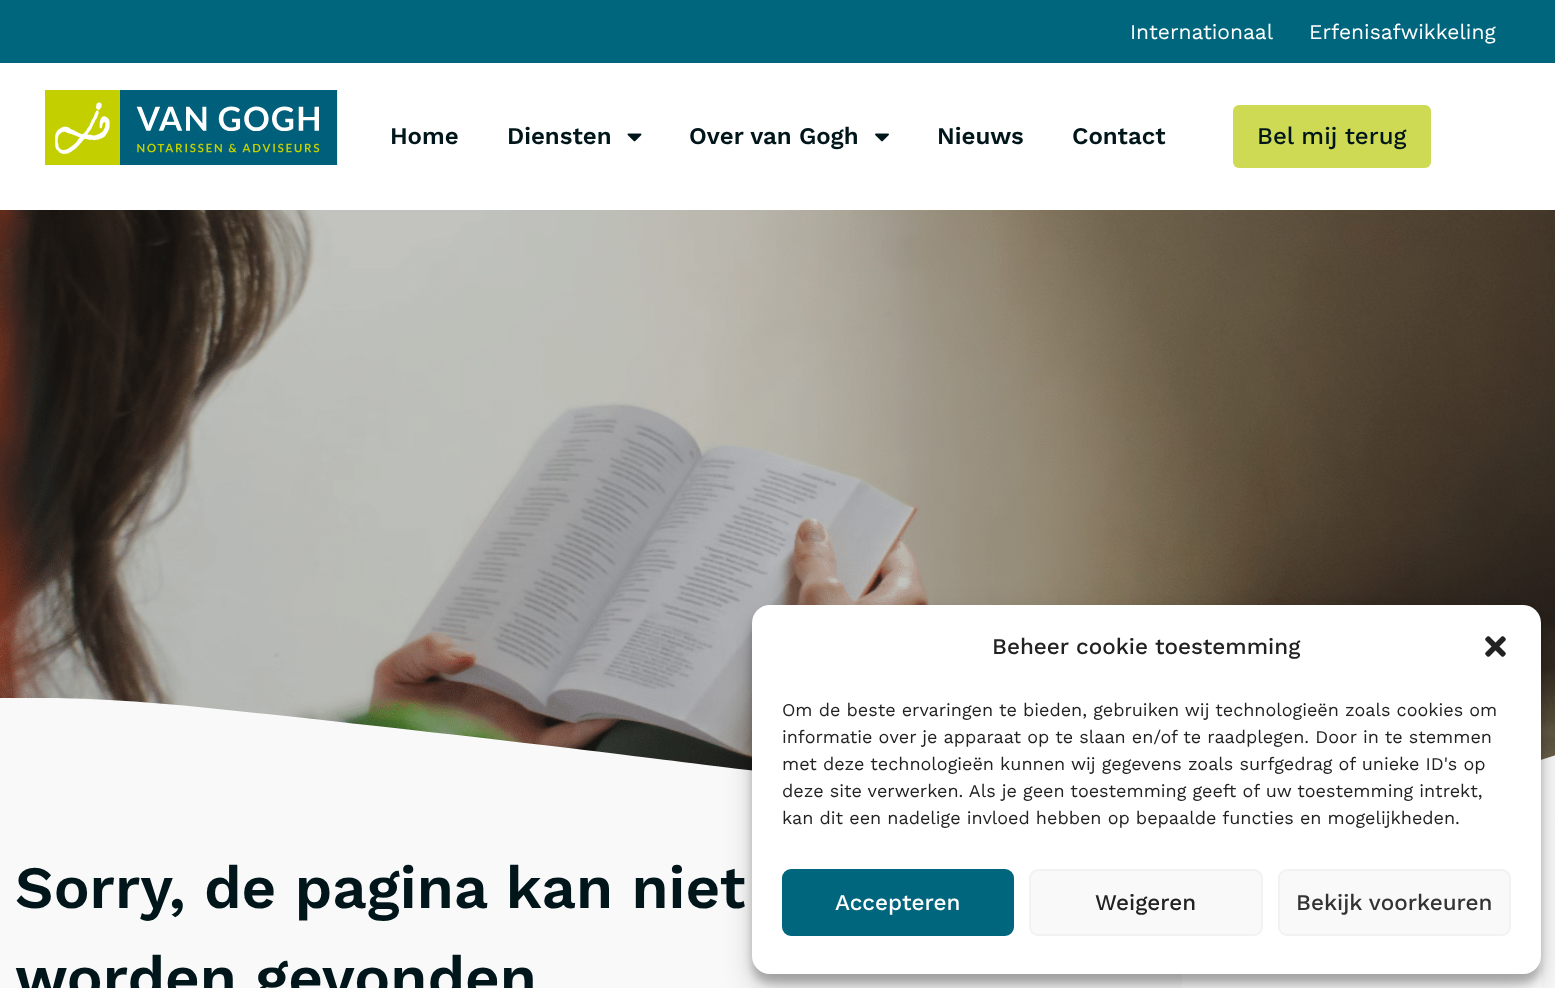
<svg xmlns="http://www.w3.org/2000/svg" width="1555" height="988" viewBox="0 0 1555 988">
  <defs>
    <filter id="blur1" x="-50%" y="-200%" width="200%" height="500%"><feGaussianBlur stdDeviation="4.5"/></filter>
    <filter id="blur2" x="-50%" y="-200%" width="200%" height="500%"><feGaussianBlur stdDeviation="15"/></filter>
  </defs>
  <rect width="100%" height="100%" fill="#ffffff"/>
  <rect x="0" y="0" width="1555" height="63" fill="#00667d"/>
  <text x="1130" y="39" font-family="Work Sans" font-size="21" fill="#ffffff">Internationaal</text>
  <text x="1309" y="39" font-family="Work Sans" font-size="21" fill="#ffffff">Erfenisafwikkeling</text>
  <image x="45" y="90" width="293" height="75" href="img1.png"/>
  <text x="390" y="144" font-family="Work Sans" font-size="24" font-weight="600" fill="#00161b">Home</text>
  <text x="507" y="144" font-family="Work Sans" font-size="24" font-weight="600" fill="#00161b">Diensten</text>
  <image x="627" y="133" width="15" height="9" href="img2.png"/>
  <text x="689" y="144" font-family="Work Sans" font-size="24" font-weight="600" fill="#00161b">Over van Gogh</text>
  <image x="875" y="133" width="14" height="9" href="img3.png"/>
  <text x="937" y="144" font-family="Work Sans" font-size="24" font-weight="600" fill="#00161b">Nieuws</text>
  <text x="1072" y="144" font-family="Work Sans" font-size="24" font-weight="600" fill="#00161b">Contact</text>
  <rect x="1233" y="105" width="198" height="63" rx="6" fill="#ced954"/>
  <text x="1257" y="144" font-family="Work Sans" font-size="24" font-weight="500" fill="#00161b">Bel mij terug</text>
  <image x="0" y="210" width="1555" height="611" href="img4.png"/>
  <image x="0" y="698" width="1555" height="130" href="img5.png"/>
  <rect x="0" y="828" width="1555" height="160" fill="#f9f9f9"/>
  <text x="15" y="908" font-family="Work Sans" font-size="60" font-weight="600" fill="#00161b">Sorry, de pagina kan niet</text>
  <text x="15" y="998" font-family="Work Sans" font-size="60" font-weight="600" fill="#00161b">worden gevonden</text>
  <rect x="1182" y="956" width="359" height="32" fill="#ffffff"/>
  <rect x="752" y="614" width="789" height="369" rx="18" fill="#000000" fill-opacity="0.23" filter="url(#blur1)"/>
  <rect x="752" y="620" width="789" height="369" rx="18" fill="#000000" fill-opacity="0.19" filter="url(#blur2)"/>
  <rect x="752" y="605" width="789" height="369" rx="18" fill="#ffffff"/>
  <text x="992" y="654" font-family="Work Sans" font-size="22.5" font-weight="500" fill="#222222">Beheer cookie toestemming</text>
  <image x="1485" y="636" width="21" height="21" href="img6.png"/>
  <text x="782" y="716" font-family="Work Sans" font-size="18" fill="#222222">Om de beste ervaringen te bieden, gebruiken wij technologieën zoals cookies om</text>
  <text x="782" y="743" font-family="Work Sans" font-size="18" fill="#222222">informatie over je apparaat op te slaan en/of te raadplegen. Door in te stemmen</text>
  <text x="782" y="770" font-family="Work Sans" font-size="18" fill="#222222">met deze technologieën kunnen wij gegevens zoals surfgedrag of unieke ID's op</text>
  <text x="782" y="797" font-family="Work Sans" font-size="18" fill="#222222">deze site verwerken. Als je geen toestemming geeft of uw toestemming intrekt,</text>
  <text x="782" y="824" font-family="Work Sans" font-size="18" fill="#222222">kan dit een nadelige invloed hebben op bepaalde functies en mogelijkheden.</text>
  <rect x="783" y="870" width="230" height="65" rx="8" fill="#00667d" stroke="#00667d" stroke-width="2"/>
  <text x="835" y="910" font-family="Work Sans" font-size="22.5" font-weight="500" fill="#ffffff">Accepteren</text>
  <rect x="1030" y="870" width="232" height="65" rx="8" fill="#f9f9f9" stroke="#f2f2f2" stroke-width="2"/>
  <text x="1095" y="910" font-family="Work Sans" font-size="22.5" font-weight="500" fill="#222222">Weigeren</text>
  <rect x="1279" y="870" width="231" height="65" rx="8" fill="#f9f9f9" stroke="#f2f2f2" stroke-width="2"/>
  <text x="1296" y="910" font-family="Work Sans" font-size="22.5" font-weight="500" fill="#333333">Bekijk voorkeuren</text>
</svg>
